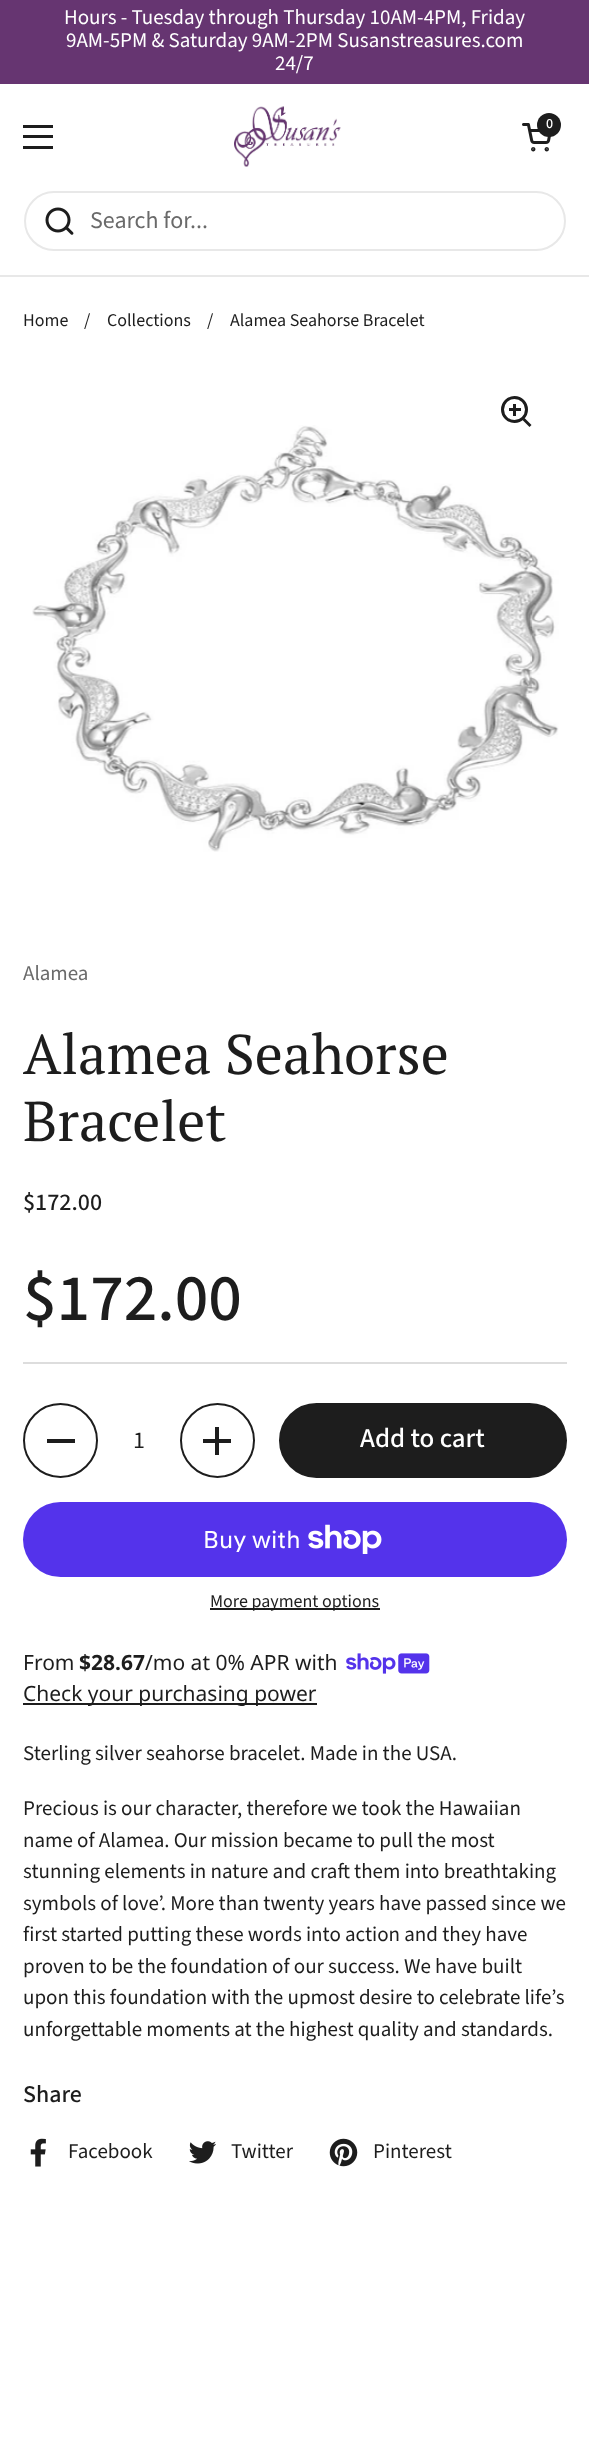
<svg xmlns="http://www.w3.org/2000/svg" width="589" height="2448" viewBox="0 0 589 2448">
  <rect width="100%" height="100%" fill="#ffffff"/>
  <rect x="0" y="0" width="589" height="84" fill="#663571"/>
  <text x="64" y="24" font-family="Source Sans Pro" font-size="21" fill="#ffffff">Hours - Tuesday through Thursday 10AM-4PM, Friday</text>
  <text x="66" y="47" font-family="Source Sans Pro" font-size="21" fill="#ffffff">9AM-5PM &amp; Saturday 9AM-2PM Susanstreasures.com</text>
  <text x="275" y="70" font-family="Source Sans Pro" font-size="21" fill="#ffffff">24/7</text>
  <image x="234" y="106" width="107" height="61" href="img1.png"/>
  <image x="522" y="123" width="29" height="29" href="img2.png"/>
  <circle cx="549" cy="125" r="12" fill="#1d1d1d"/>
  <text x="546" y="128" font-family="Source Sans Pro" font-size="14" font-weight="500" fill="#ffffff">0</text>
  <rect x="23" y="125" width="30" height="3" fill="#1d1d1d"/>
  <rect x="23" y="135" width="30" height="3" fill="#1d1d1d"/>
  <rect x="23" y="146" width="30" height="3" fill="#1d1d1d"/>
  <rect x="0" y="275" width="589" height="2" fill="#e8e8e8"/>
  <rect x="25" y="192" width="540" height="58" rx="29" fill="none" stroke="#e8e8e8" stroke-width="2"/>
  <image x="45" y="207" width="29" height="28" href="img3.png"/>
  <text x="90" y="228" font-family="Source Sans Pro" font-size="24" fill="#6a6a6a">Search for...</text>
  <text x="23" y="326" font-family="Source Sans Pro" font-size="18" fill="#1d1d1d">Home</text>
  <text x="84" y="326" font-family="Source Sans Pro" font-size="18" fill="#1d1d1d">/</text>
  <text x="107" y="326" font-family="Source Sans Pro" font-size="18" fill="#1d1d1d">Collections</text>
  <text x="207" y="326" font-family="Source Sans Pro" font-size="18" fill="#1d1d1d">/</text>
  <text x="230" y="326" font-family="Source Sans Pro" font-size="18" fill="#1d1d1d">Alamea Seahorse Bracelet</text>
  <circle cx="514.5" cy="409.5" r="12" fill="none" stroke="#1d1d1d" stroke-width="3"/>
  <rect x="513" y="404" width="3" height="12" fill="#1d1d1d"/>
  <rect x="509" y="408" width="12" height="3" fill="#1d1d1d"/>
  <image x="32" y="425" width="527" height="427" href="img4.png"/>
  <path d="M522.5 420L524.5 418L531.5 425L529.5 427Z" fill="#1d1d1d"/>
  <text x="23" y="980" font-family="Source Sans Pro" font-size="21" fill="#6a6a6a">Alamea</text>
  <text x="23" y="1074" font-family="PT Serif" font-size="56" fill="#1d1d1d">Alamea Seahorse</text>
  <text x="23" y="1141" font-family="PT Serif" font-size="56" fill="#1d1d1d">Bracelet</text>
  <text x="23" y="1210" font-family="Source Sans Pro" font-size="24" font-weight="500" fill="#1d1d1d">$172.00</text>
  <text x="23" y="1320" font-family="Source Sans Pro" font-size="66.5" font-weight="500" fill="#1d1d1d">$172.00</text>
  <rect x="23" y="1362" width="544" height="2" fill="#dddddd"/>
  <circle cx="60.5" cy="1440.5" r="36.5" fill="none" stroke="#1d1d1d" stroke-width="2"/>
  <rect x="47" y="1439" width="28" height="4" fill="#1d1d1d"/>
  <text x="133" y="1448" font-family="Source Sans Pro" font-size="24" fill="#1d1d1d">1</text>
  <circle cx="217.5" cy="1440.5" r="36.5" fill="none" stroke="#1d1d1d" stroke-width="2"/>
  <rect x="215" y="1427" width="4" height="28" fill="#1d1d1d"/>
  <rect x="203" y="1439" width="28" height="4" fill="#1d1d1d"/>
  <rect x="280" y="1404" width="286" height="73" rx="36.5" fill="#1d1d1d" stroke="#1d1d1d" stroke-width="2"/>
  <text x="360" y="1447" font-family="Source Sans Pro" font-size="27" font-weight="500" fill="#ffffff">Add to cart</text>
  <rect x="23" y="1502" width="544" height="75" rx="37.5" fill="#5433eb"/>
  <text x="203" y="1548" font-family="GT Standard" font-size="24" fill="#ffffff">Buy with</text>
  <image x="308" y="1524" width="74" height="30" href="img5.png"/>
  <rect x="210" y="1608" width="170" height="2" fill="#1d1d1d"/>
  <text x="210" y="1607" font-family="Source Sans Pro" font-size="18" fill="#1d1d1d">More payment options</text>
  <text x="23" y="1670" font-family="Noto Sans" font-size="21" fill="#1d1d1d">From</text>
  <text x="79" y="1670" font-family="Noto Sans" font-size="21" font-weight="bold" fill="#1d1d1d">$28.67</text>
  <text x="145" y="1670" font-family="Noto Sans" font-size="21" fill="#1d1d1d">/mo at 0% APR with</text>
  <image x="346" y="1653" width="84" height="21" href="img6.png"/>
  <rect x="23" y="1703" width="294" height="2" fill="#1d1d1d"/>
  <text x="23" y="1701" font-family="Noto Sans" font-size="21" fill="#1d1d1d">Check your purchasing power</text>
  <text x="23" y="1760" font-family="Source Sans Pro" font-size="21" fill="#1d1d1d">Sterling silver seahorse bracelet. Made in the USA.</text>
  <text x="23" y="1815" font-family="Source Sans Pro" font-size="21" fill="#1d1d1d">Precious is our character, therefore we took the Hawaiian</text>
  <text x="23" y="1847" font-family="Source Sans Pro" font-size="21" fill="#1d1d1d">name of Alamea. Our mission became to pull the most</text>
  <text x="23" y="1878" font-family="Source Sans Pro" font-size="21" fill="#1d1d1d">stunning elements in nature and craft them into breathtaking</text>
  <text x="23" y="1910" font-family="Source Sans Pro" font-size="21" fill="#1d1d1d">symbols of love’. More than twenty years have passed since we</text>
  <text x="23" y="1941" font-family="Source Sans Pro" font-size="21" fill="#1d1d1d">first started putting these words into action and they have</text>
  <text x="23" y="1973" font-family="Source Sans Pro" font-size="21" fill="#1d1d1d">proven to be the foundation of our success. We have built</text>
  <text x="23" y="2004" font-family="Source Sans Pro" font-size="21" fill="#1d1d1d">upon this foundation with the upmost desire to celebrate life’s</text>
  <text x="23" y="2036" font-family="Source Sans Pro" font-size="21" fill="#1d1d1d">unforgettable moments at the highest quality and standards.</text>
  <text x="23" y="2102" font-family="Source Sans Pro" font-size="24" font-weight="500" fill="#1d1d1d">Share</text>
  <image x="30" y="2138" width="16" height="29" href="img7.png"/>
  <text x="68" y="2158" font-family="Source Sans Pro" font-size="21" fill="#1d1d1d">Facebook</text>
  <image x="189" y="2141" width="27" height="23" href="img8.png"/>
  <text x="231" y="2158" font-family="Source Sans Pro" font-size="21" fill="#1d1d1d">Twitter</text>
  <image x="329" y="2138" width="29" height="29" href="img9.png"/>
  <text x="373" y="2158" font-family="Source Sans Pro" font-size="21" fill="#1d1d1d">Pinterest</text>
</svg>
